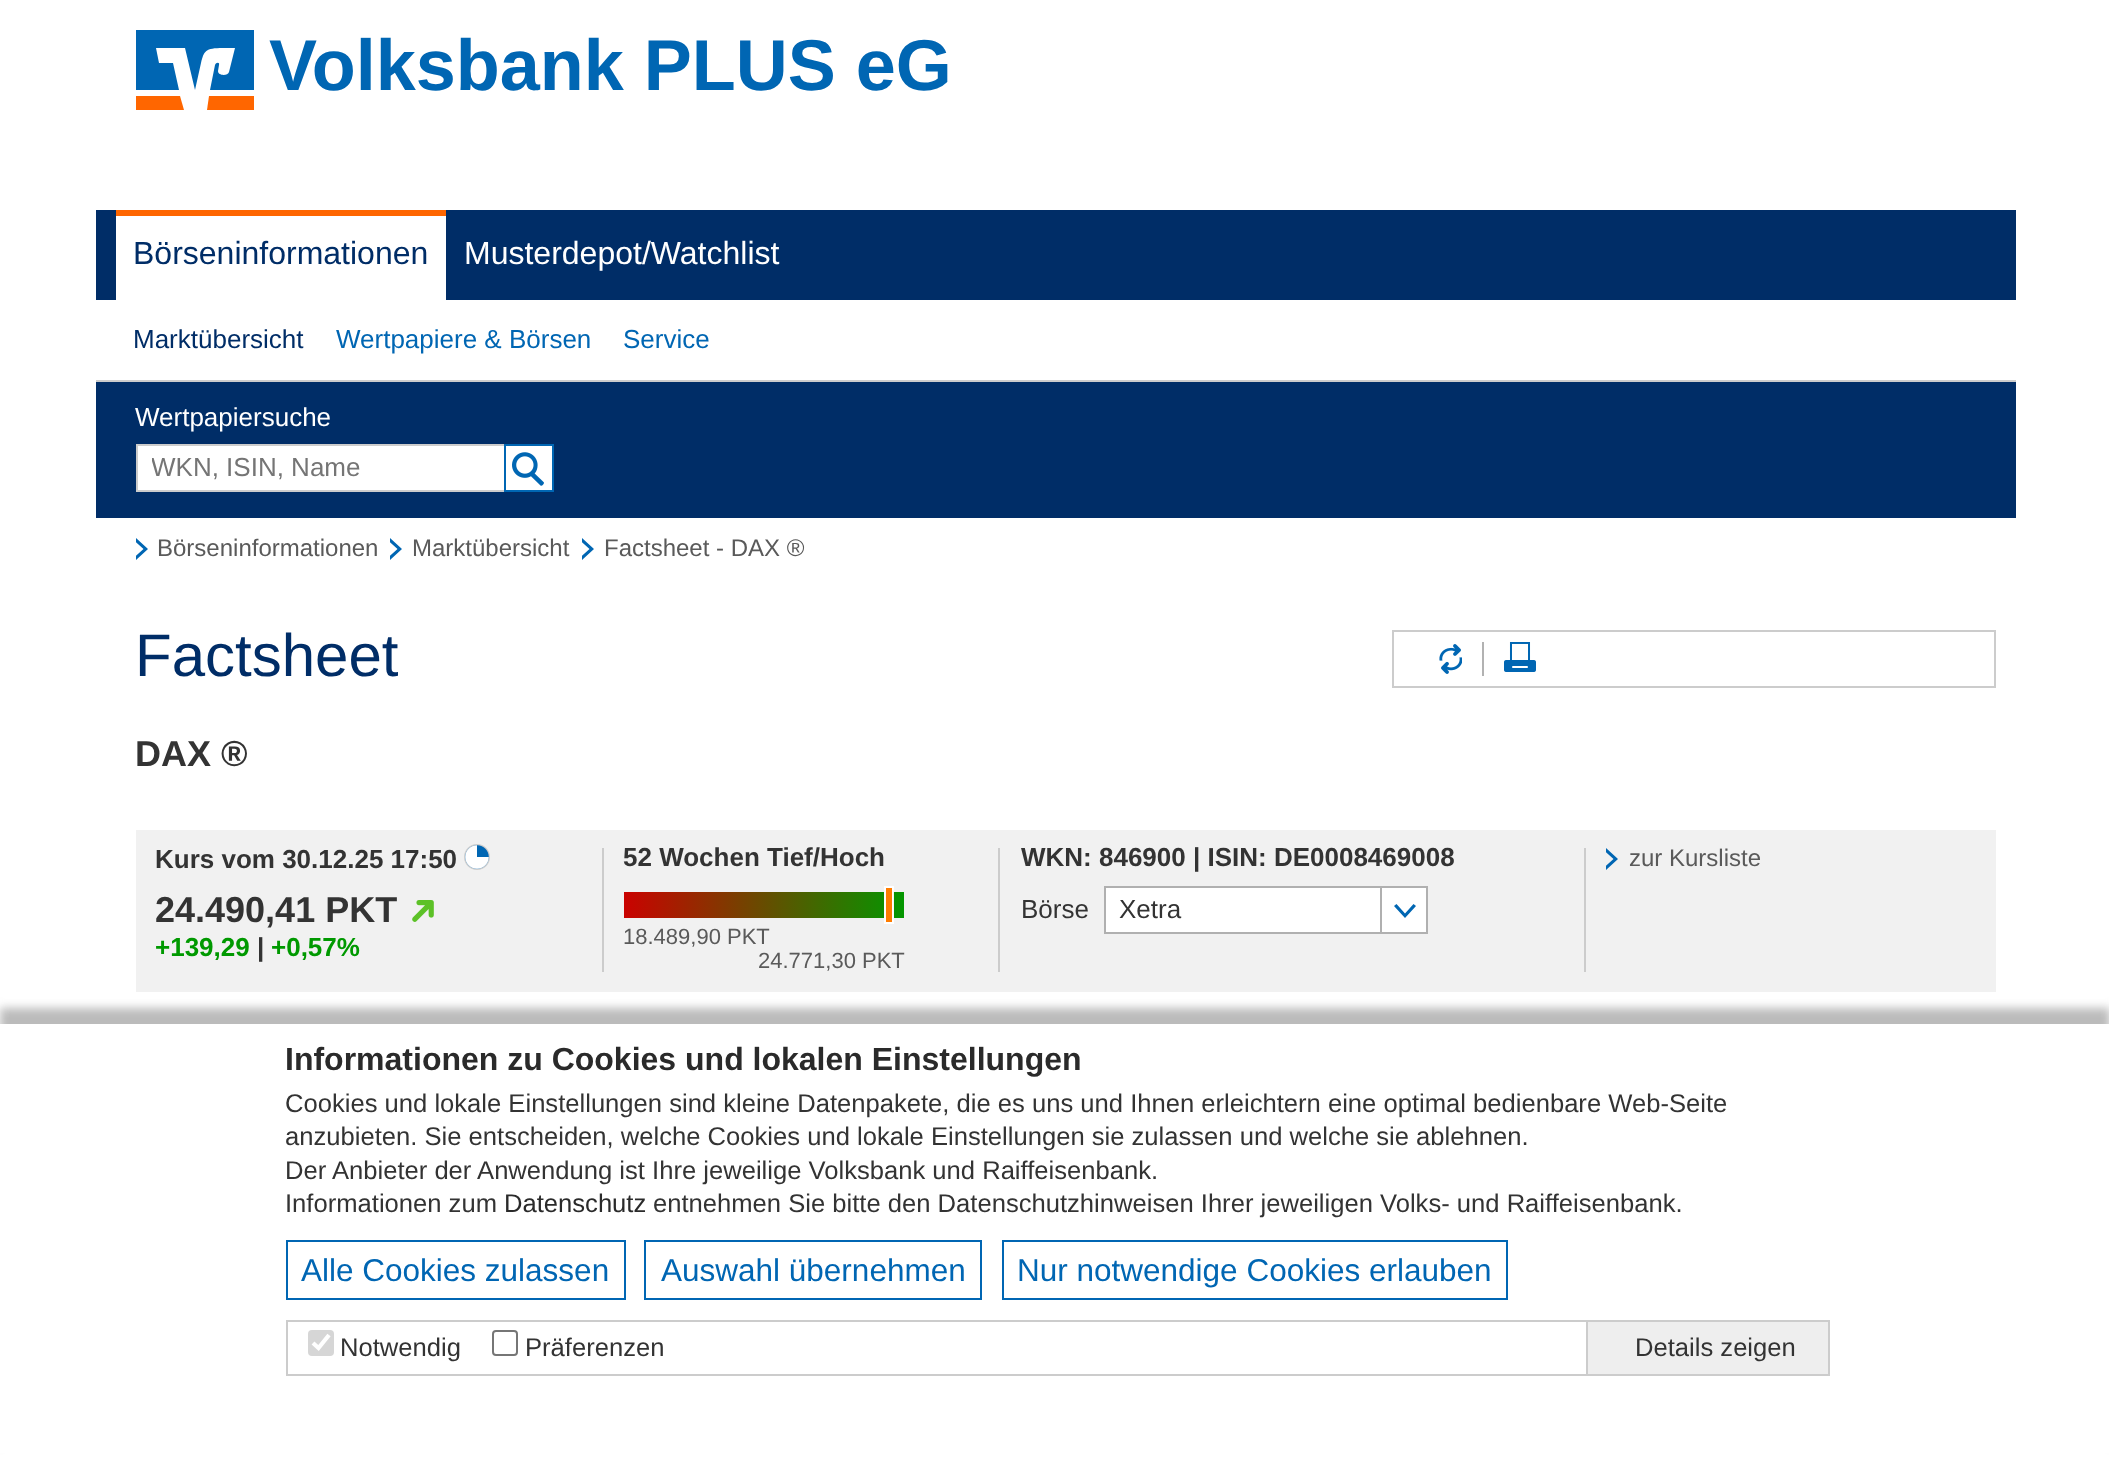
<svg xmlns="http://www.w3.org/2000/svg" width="2109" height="1459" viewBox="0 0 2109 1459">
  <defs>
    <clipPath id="clip1"><rect x="152" y="452" width="352" height="30"/></clipPath>
    <clipPath id="clip2"><rect x="136" y="538" width="12" height="22"/></clipPath>
    <clipPath id="clip3"><rect x="390" y="538" width="12" height="22"/></clipPath>
    <clipPath id="clip4"><rect x="582" y="538" width="12" height="22"/></clipPath>
    <linearGradient id="g1" gradientUnits="userSpaceOnUse" x1="624" y1="905" x2="904" y2="905"><stop offset="0" stop-color="#ca0200"/><stop offset="1" stop-color="#039700"/></linearGradient>
    <clipPath id="clip5"><rect x="1606" y="848" width="12" height="22"/></clipPath>
    <filter id="blur1" x="-50%" y="-200%" width="200%" height="500%"><feGaussianBlur stdDeviation="5"/></filter>
  </defs>
  <rect width="100%" height="100%" fill="#ffffff"/>
  <path d="M254 96H209L207 110H254Z" fill="#ff6600"/>
  <path d="M136 96V110H184L180 96Z" fill="#ff6600"/>
  <path d="M159 63L156 48H185L195 90L201 63C204 51 205 48 223 48H235L229 72C228 76 218 76 218 71L219 65C220 62 216 62 215 65L210 90H254V30H136V90H179L173 63Z" fill="#0066b3"/>
  <text x="269" y="90" font-family="Liberation Sans" font-size="72" font-weight="bold" fill="#0066b3">Volksbank PLUS eG</text>
  <rect x="96" y="210" width="1920" height="90" fill="#002d67"/>
  <rect x="116" y="216" width="330" height="84" fill="#ffffff"/>
  <rect x="116" y="210" width="330" height="6" fill="#ff6600"/>
  <text x="133" y="264" font-family="Liberation Sans" font-size="32" fill="#002d67">Börseninformationen</text>
  <text x="464" y="264" font-family="Liberation Sans" font-size="32" fill="#ffffff">Musterdepot/Watchlist</text>
  <rect x="96" y="380" width="1920" height="2" fill="#cccccc"/>
  <text x="133" y="348" font-family="Liberation Sans" font-size="26" fill="#002d67">Marktübersicht</text>
  <text x="336" y="348" font-family="Liberation Sans" font-size="26" fill="#0066b3">Wertpapiere &amp; Börsen</text>
  <text x="623" y="348" font-family="Liberation Sans" font-size="26" fill="#0066b3">Service</text>
  <rect x="96" y="382" width="1920" height="136" fill="#002d67"/>
  <text x="135" y="426" font-family="Liberation Sans" font-size="26" fill="#ffffff">Wertpapiersuche</text>
  <rect x="138" y="446" width="366" height="44" fill="#ffffff"/>
  <rect x="136" y="444" width="368" height="2" fill="#cccccc"/>
  <rect x="136" y="490" width="368" height="2" fill="#cccccc"/>
  <rect x="136" y="444" width="2" height="48" fill="#cccccc"/>
  <g clip-path="url(#clip1)">
    <text x="151" y="476" font-family="Liberation Sans" font-size="26" fill="#757575">WKN, ISIN, Name</text>
  </g>
  <rect x="506" y="446" width="46" height="44" fill="#ffffff"/>
  <image x="512" y="452" width="32" height="34" href="img1.png"/>
  <rect x="505" y="445" width="48" height="46" fill="none" stroke="#0066b3" stroke-width="2"/>
  <g clip-path="url(#clip2)">
    <path d="M136 560L134 557.5L143.5 549L134 540.5L136 538L148 549Z" fill="#0066b3"/>
  </g>
  <text x="157" y="556" font-family="Liberation Sans" font-size="24" fill="#5a5a5a">Börseninformationen</text>
  <g clip-path="url(#clip3)">
    <path d="M390 560L388 557.5L397.5 549L388 540.5L390 538L402 549Z" fill="#0066b3"/>
  </g>
  <text x="412" y="556" font-family="Liberation Sans" font-size="24" fill="#5a5a5a">Marktübersicht</text>
  <g clip-path="url(#clip4)">
    <path d="M582 560L580 557.5L589.5 549L580 540.5L582 538L594 549Z" fill="#0066b3"/>
  </g>
  <text x="604" y="556" font-family="Liberation Sans" font-size="24" fill="#5a5a5a">Factsheet - DAX ®</text>
  <text x="135" y="676" font-family="Liberation Sans" font-size="60" fill="#002d67">Factsheet</text>
  <rect x="1393" y="631" width="602" height="56" fill="none" stroke="#cccccc" stroke-width="2"/>
  <image x="1439" y="644" width="23" height="30" href="img2.png"/>
  <rect x="1482" y="642" width="2" height="34" fill="#b2b2b2"/>
  <image x="1504" y="642" width="32" height="30" href="img3.png"/>
  <text x="135" y="766" font-family="Liberation Sans" font-size="36" font-weight="bold" fill="#333333">DAX ®</text>
  <rect x="136" y="830" width="1860" height="162" fill="#f1f1f1"/>
  <text x="155" y="868" font-family="Liberation Sans" font-size="26" font-weight="bold" fill="#333333">Kurs vom 30.12.25 17:50</text>
  <image x="464" y="844" width="26" height="26" href="img4.png"/>
  <text x="155" y="922" font-family="Liberation Sans" font-size="36" font-weight="bold" fill="#333333">24.490,41 PKT</text>
  <image x="412" y="900" width="22" height="22" href="img5.png"/>
  <text x="155" y="956" font-family="Liberation Sans" font-size="26" font-weight="bold" fill="#009900">+139,29</text>
  <text x="257" y="956" font-family="Liberation Sans" font-size="26" font-weight="bold" fill="#333333">|</text>
  <text x="271" y="956" font-family="Liberation Sans" font-size="26" font-weight="bold" fill="#009900">+0,57%</text>
  <rect x="602" y="848" width="2" height="124" fill="#cccccc"/>
  <text x="623" y="866" font-family="Liberation Sans" font-size="26" font-weight="bold" fill="#333333">52 Wochen Tief/Hoch</text>
  <path d="M624 892H904V918H624V902Z" fill="url(#g1)" fill-rule="evenodd"/>
  <image x="884" y="886" width="10" height="38" href="img6.png"/>
  <text x="623" y="944" font-family="Liberation Sans" font-size="22" fill="#5a5a5a">18.489,90 PKT</text>
  <text x="758" y="968" font-family="Liberation Sans" font-size="22" fill="#5a5a5a">24.771,30 PKT</text>
  <rect x="998" y="848" width="2" height="124" fill="#cccccc"/>
  <text x="1021" y="866" font-family="Liberation Sans" font-size="26" font-weight="bold" fill="#333333">WKN: 846900 | ISIN: DE0008469008</text>
  <text x="1021" y="918" font-family="Liberation Sans" font-size="26" fill="#333333">Börse</text>
  <rect x="1106" y="888" width="274" height="44" fill="#ffffff"/>
  <rect x="1105" y="887" width="322" height="46" fill="none" stroke="#b0b0b0" stroke-width="2"/>
  <text x="1119" y="918" font-family="Liberation Sans" font-size="26" fill="#333333">Xetra</text>
  <rect x="1381" y="887" width="46" height="46" fill="#ffffff" stroke="#b0b0b0" stroke-width="2"/>
  <path d="M1394 906L1396.5 904L1405 913.5L1413.5 904L1416 906L1405 918Z" fill="#0066b3"/>
  <rect x="1584" y="848" width="2" height="124" fill="#cccccc"/>
  <g clip-path="url(#clip5)">
    <path d="M1606 870L1604 867.5L1613.5 859L1604 850.5L1606 848L1618 859Z" fill="#0066b3"/>
  </g>
  <text x="1629" y="866" font-family="Liberation Sans" font-size="24" fill="#5a5a5a">zur Kursliste</text>
  <rect x="0" y="1008" width="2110" height="436" fill="#bbbbbb" filter="url(#blur1)"/>
  <rect x="0" y="1024" width="2109" height="429" fill="#ffffff"/>
  <text x="285" y="1070" font-family="Liberation Sans" font-size="32" font-weight="bold" fill="#2a2a2a">Informationen zu Cookies und lokalen Einstellungen</text>
  <text x="285" y="1112" font-family="Liberation Sans" font-size="25.6" fill="#333333">Cookies und lokale Einstellungen sind kleine Datenpakete, die es uns und Ihnen erleichtern eine optimal bedienbare Web-Seite</text>
  <text x="285" y="1145" font-family="Liberation Sans" font-size="25.6" fill="#333333">anzubieten. Sie entscheiden, welche Cookies und lokale Einstellungen sie zulassen und welche sie ablehnen.</text>
  <text x="285" y="1179" font-family="Liberation Sans" font-size="25.6" fill="#333333">Der Anbieter der Anwendung ist Ihre jeweilige Volksbank und Raiffeisenbank.</text>
  <text x="285" y="1212" font-family="Liberation Sans" font-size="25.6" fill="#333333">Informationen zum</text>
  <text x="504" y="1212" font-family="Liberation Sans" font-size="25.6" fill="#2a2a2a">Datenschutz</text>
  <text x="653" y="1212" font-family="Liberation Sans" font-size="25.6" fill="#333333">entnehmen Sie bitte den Datenschutzhinweisen Ihrer jeweiligen Volks- und Raiffeisenbank.</text>
  <rect x="287" y="1241" width="338" height="58" fill="none" stroke="#0066b3" stroke-width="2"/>
  <text x="301" y="1281" font-family="Liberation Sans" font-size="31.5" fill="#0066b3">Alle Cookies zulassen</text>
  <rect x="645" y="1241" width="336" height="58" fill="none" stroke="#0066b3" stroke-width="2"/>
  <text x="661" y="1281" font-family="Liberation Sans" font-size="31.5" fill="#0066b3">Auswahl übernehmen</text>
  <rect x="1003" y="1241" width="504" height="58" fill="none" stroke="#0066b3" stroke-width="2"/>
  <text x="1017" y="1281" font-family="Liberation Sans" font-size="31.5" fill="#0066b3">Nur notwendige Cookies erlauben</text>
  <rect x="287" y="1321" width="1542" height="54" fill="none" stroke="#cccccc" stroke-width="2"/>
  <rect x="308" y="1330" width="26" height="26" rx="4" fill="#d6d6d6"/>
  <path d="M313 1343L318.5 1348L329 1335" fill="none" stroke="#ffffff" stroke-width="4.2"/>
  <text x="340" y="1356" font-family="Liberation Sans" font-size="25.6" fill="#333333">Notwendig</text>
  <rect x="493" y="1331" width="24" height="24" rx="3" fill="none" stroke="#767676" stroke-width="2"/>
  <text x="525" y="1356" font-family="Liberation Sans" font-size="25.6" fill="#333333">Präferenzen</text>
  <rect x="1588" y="1322" width="240" height="52" fill="#eeeeee"/>
  <rect x="1586" y="1322" width="2" height="52" fill="#cccccc"/>
  <text x="1635" y="1356" font-family="Liberation Sans" font-size="25.6" fill="#333333">Details zeigen</text>
</svg>
